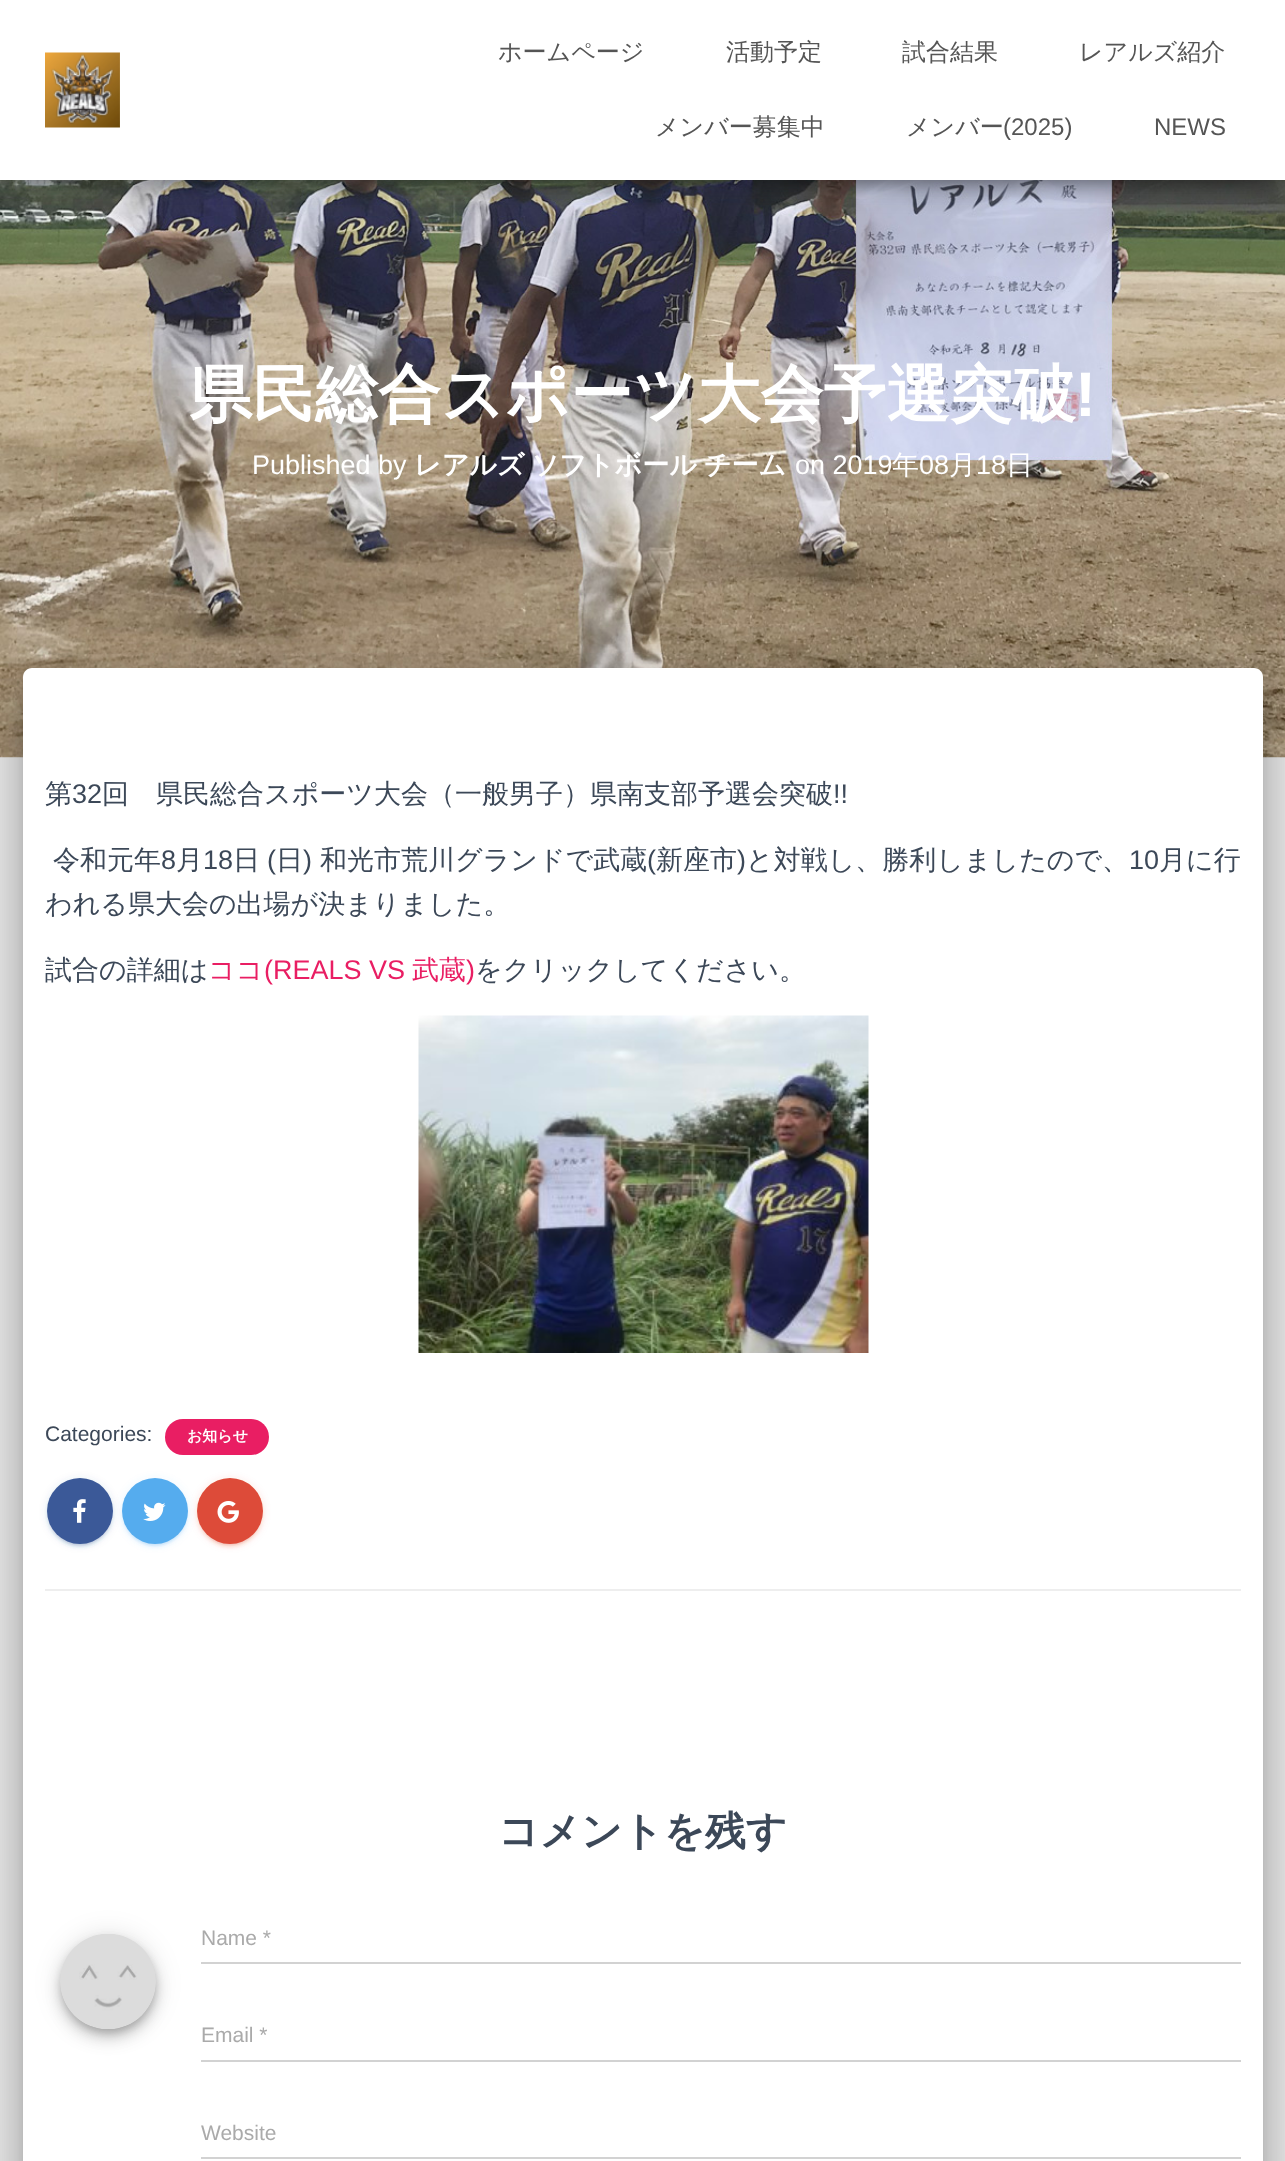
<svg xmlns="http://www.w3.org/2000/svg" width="1285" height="2161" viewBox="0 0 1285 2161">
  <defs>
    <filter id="blur1" x="-50%" y="-200%" width="200%" height="500%"><feGaussianBlur stdDeviation="7.5"/></filter>
    <filter id="blur2" x="-50%" y="-200%" width="200%" height="500%"><feGaussianBlur stdDeviation="15"/></filter>
    <filter id="blur3" x="-50%" y="-200%" width="200%" height="500%"><feGaussianBlur stdDeviation="22.5"/></filter>
    <filter id="blur4" x="-50%" y="-200%" width="200%" height="500%"><feGaussianBlur stdDeviation="18"/></filter>
    <filter id="blur5" x="-50%" y="-200%" width="200%" height="500%"><feGaussianBlur stdDeviation="4"/></filter>
    <filter id="blur6" x="-50%" y="-200%" width="200%" height="500%"><feGaussianBlur stdDeviation="1"/></filter>
    <filter id="blur7" x="-50%" y="-200%" width="200%" height="500%"><feGaussianBlur stdDeviation="1.5"/></filter>
    <filter id="blur8" x="-50%" y="-200%" width="200%" height="500%"><feGaussianBlur stdDeviation="13.5"/></filter>
  </defs>
  <rect width="100%" height="100%" fill="#e5e5e5"/>
  <image x="0" y="180" width="1285" height="578" href="img2.png"/>
  <rect x="8" y="20" width="1270" height="165" fill="#000000" fill-opacity="0.2" filter="url(#blur1)"/>
  <rect x="0" y="5" width="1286" height="180" fill="#000000" fill-opacity="0.12" filter="url(#blur2)"/>
  <rect x="18" y="33" width="1250" height="144" fill="#000000" fill-opacity="0.42" filter="url(#blur2)"/>
  <rect x="0" y="0" width="1285" height="180" fill="#ffffff"/>
  <image x="45" y="52" width="75" height="76" href="img1.png"/>
  <text x="498" y="60" font-family="WenQuanYi Zen Hei" font-size="24" font-weight="500" fill="#555555">ホームページ</text>
  <text x="726" y="60" font-family="WenQuanYi Zen Hei" font-size="24" font-weight="500" fill="#555555">活動予定</text>
  <text x="902" y="60" font-family="WenQuanYi Zen Hei" font-size="24" font-weight="500" fill="#555555">試合結果</text>
  <text x="1079" y="60" font-family="WenQuanYi Zen Hei" font-size="24" font-weight="500" fill="#555555">レアルズ紹介</text>
  <text x="655" y="135" font-family="WenQuanYi Zen Hei" font-size="24" font-weight="500" fill="#555555">メンバー募集中</text>
  <text x="906" y="135" font-family="WenQuanYi Zen Hei" font-size="24" font-weight="500" fill="#555555">メンバー</text>
  <text x="1003" y="135" font-family="Liberation Sans" font-size="24" fill="#555555">(2025)</text>
  <text x="1154" y="135" font-family="Liberation Sans" font-size="24" fill="#555555">NEWS</text>
  <text x="189" y="416" font-family="WenQuanYi Zen Hei" font-size="63" font-weight="bold" fill="#ffffff">県民総合スポーツ大会予選突破</text>
  <text x="1075" y="416" font-family="Liberation Sans" font-size="63" font-weight="bold" fill="#ffffff">!</text>
  <text x="252" y="474" font-family="Liberation Sans" font-size="27" fill="#ffffff">Published by</text>
  <text x="414" y="474" word-spacing="-1" font-family="WenQuanYi Zen Hei" font-size="27" font-weight="bold" fill="#ffffff">レアルズ ソフトボール チーム</text>
  <text x="795" y="474" font-family="Liberation Sans" font-size="27" fill="#ffffff">on 2019</text>
  <text x="892" y="474" font-family="WenQuanYi Zen Hei" font-size="27" font-weight="500" fill="#ffffff">年</text>
  <text x="919" y="474" font-family="Liberation Sans" font-size="27" fill="#ffffff">08</text>
  <text x="949" y="474" font-family="WenQuanYi Zen Hei" font-size="27" font-weight="500" fill="#ffffff">月</text>
  <text x="976" y="474" font-family="Liberation Sans" font-size="27" fill="#ffffff">18</text>
  <text x="1006" y="474" font-family="WenQuanYi Zen Hei" font-size="27" font-weight="500" fill="#ffffff">日</text>
  <rect x="30" y="687" width="1226" height="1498" rx="1.5" fill="#000000" fill-opacity="0.2" filter="url(#blur1)"/>
  <rect x="15" y="669" width="1256" height="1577" rx="17" fill="#000000" fill-opacity="0.12" filter="url(#blur3)"/>
  <rect x="20" y="689" width="1246" height="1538" rx="12" fill="#000000" fill-opacity="0.14" filter="url(#blur4)"/>
  <path d="M32 668H1254C1259 668 1263 672 1263 677V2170H23V677C23 672 27 668 32 668Z" fill="#ffffff"/>
  <text x="45" y="803" font-family="WenQuanYi Zen Hei" font-size="27" font-weight="500" fill="#3c4858">第</text>
  <text x="72" y="803" font-family="Liberation Sans" font-size="27" fill="#3c4858">32</text>
  <text x="102" y="803" font-family="WenQuanYi Zen Hei" font-size="27" font-weight="500" fill="#3c4858">回　県民総合スポーツ大会（一般男子）県南支部予選会突破</text>
  <text x="833" y="803" font-family="Liberation Sans" font-size="27" fill="#3c4858">!!</text>
  <text x="53" y="869" font-family="WenQuanYi Zen Hei" font-size="27" font-weight="500" fill="#3c4858">令和元年</text>
  <text x="161" y="869" font-family="Liberation Sans" font-size="27" fill="#3c4858">8</text>
  <text x="176" y="869" font-family="WenQuanYi Zen Hei" font-size="27" font-weight="500" fill="#3c4858">月</text>
  <text x="203" y="869" font-family="Liberation Sans" font-size="27" fill="#3c4858">18</text>
  <text x="233" y="869" font-family="WenQuanYi Zen Hei" font-size="27" font-weight="500" fill="#3c4858">日</text>
  <text x="267" y="869" font-family="Liberation Sans" font-size="27" fill="#3c4858">(</text>
  <text x="276" y="869" font-family="WenQuanYi Zen Hei" font-size="27" font-weight="500" fill="#3c4858">日</text>
  <text x="303" y="869" font-family="Liberation Sans" font-size="27" fill="#3c4858">)</text>
  <text x="320" y="869" font-family="WenQuanYi Zen Hei" font-size="27" font-weight="500" fill="#3c4858">和光市荒川グランドで武蔵</text>
  <text x="647" y="869" font-family="Liberation Sans" font-size="27" fill="#3c4858">(</text>
  <text x="656" y="869" font-family="WenQuanYi Zen Hei" font-size="27" font-weight="500" fill="#3c4858">新座市</text>
  <text x="737" y="869" font-family="Liberation Sans" font-size="27" fill="#3c4858">)</text>
  <text x="746" y="869" font-family="WenQuanYi Zen Hei" font-size="27" font-weight="500" fill="#3c4858">と対戦し、勝利しましたので、</text>
  <text x="1129" y="869" font-family="Liberation Sans" font-size="27" fill="#3c4858">10</text>
  <text x="1159" y="869" font-family="WenQuanYi Zen Hei" font-size="27" font-weight="500" fill="#3c4858">月に行</text>
  <text x="45" y="913" font-family="WenQuanYi Zen Hei" font-size="27" font-weight="500" fill="#3c4858">われる県大会の出場が決まりました。</text>
  <text x="45" y="979" font-family="WenQuanYi Zen Hei" font-size="27" font-weight="500" fill="#3c4858">試合の詳細は</text>
  <text x="208" y="979" font-family="WenQuanYi Zen Hei" font-size="27" font-weight="500" fill="#e91e63">ココ</text>
  <text x="264" y="979" font-family="Liberation Sans" font-size="27" fill="#e91e63">(REALS VS</text>
  <text x="412" y="979" font-family="WenQuanYi Zen Hei" font-size="27" font-weight="500" fill="#e91e63">武蔵</text>
  <text x="466" y="979" font-family="Liberation Sans" font-size="27" fill="#e91e63">)</text>
  <text x="475" y="979" font-family="WenQuanYi Zen Hei" font-size="27" font-weight="500" fill="#3c4858">をクリックしてください。</text>
  <image x="418" y="1015" width="451" height="338" href="img3.png"/>
  <text x="45" y="1441" font-family="Liberation Sans" font-size="21" fill="#3c4858">Categories:</text>
  <rect x="165" y="1419" width="104" height="36" rx="18" fill="#e91e63"/>
  <text x="187" y="1441" font-family="WenQuanYi Zen Hei" font-size="15" font-weight="bold" fill="#ffffff">お知らせ</text>
  <rect x="47" y="1479" width="66" height="66" rx="33" fill="#3b5998" fill-opacity="0.12" filter="url(#blur5)"/>
  <rect x="50" y="1485" width="60" height="60" rx="30" fill="#3b5998" fill-opacity="0.2" filter="url(#blur6)"/>
  <rect x="47" y="1481" width="66" height="66" rx="33" fill="#3b5998" fill-opacity="0.14" filter="url(#blur7)"/>
  <circle cx="80" cy="1511" r="33" fill="#3b5998"/>
  <image x="73" y="1499" width="13" height="24" href="img4.png"/>
  <rect x="122" y="1479" width="66" height="66" rx="33" fill="#55acee" fill-opacity="0.12" filter="url(#blur5)"/>
  <rect x="125" y="1485" width="60" height="60" rx="30" fill="#55acee" fill-opacity="0.2" filter="url(#blur6)"/>
  <rect x="122" y="1481" width="66" height="66" rx="33" fill="#55acee" fill-opacity="0.14" filter="url(#blur7)"/>
  <circle cx="155" cy="1511" r="33" fill="#55acee"/>
  <image x="143" y="1502" width="23" height="19" href="img5.png"/>
  <rect x="197" y="1479" width="66" height="66" rx="33" fill="#dd4b39" fill-opacity="0.12" filter="url(#blur5)"/>
  <rect x="200" y="1485" width="60" height="60" rx="30" fill="#dd4b39" fill-opacity="0.2" filter="url(#blur6)"/>
  <rect x="197" y="1481" width="66" height="66" rx="33" fill="#dd4b39" fill-opacity="0.14" filter="url(#blur7)"/>
  <circle cx="230" cy="1511" r="33" fill="#dd4b39"/>
  <image x="217" y="1501" width="22" height="22" href="img6.png"/>
  <rect x="45" y="1589" width="1196" height="2" fill="#eeeeee"/>
  <text x="498" y="1845" font-family="WenQuanYi Zen Hei" font-size="40.5" font-weight="bold" fill="#3c4858">コメントを残す</text>
  <rect x="62" y="1940" width="93" height="93" rx="46.5" fill="#000000" fill-opacity="0.2" filter="url(#blur5)"/>
  <rect x="60" y="1935" width="96" height="96" rx="48" fill="#000000" fill-opacity="0.12" filter="url(#blur8)"/>
  <rect x="60" y="1943" width="96" height="96" rx="48" fill="#000000" fill-opacity="0.14" filter="url(#blur1)"/>
  <image x="60" y="1934" width="96" height="95" href="img7.png"/>
  <text x="201" y="1945" font-family="Liberation Sans" font-size="21" fill="#aaaaaa">Name *</text>
  <rect x="201" y="1962" width="1040" height="2" fill="#d2d2d2"/>
  <text x="201" y="2042" font-family="Liberation Sans" font-size="21" fill="#aaaaaa">Email *</text>
  <rect x="201" y="2060" width="1040" height="2" fill="#d2d2d2"/>
  <text x="201" y="2140" font-family="Liberation Sans" font-size="21" fill="#aaaaaa">Website</text>
  <rect x="201" y="2157" width="1040" height="2" fill="#d2d2d2"/>
</svg>
